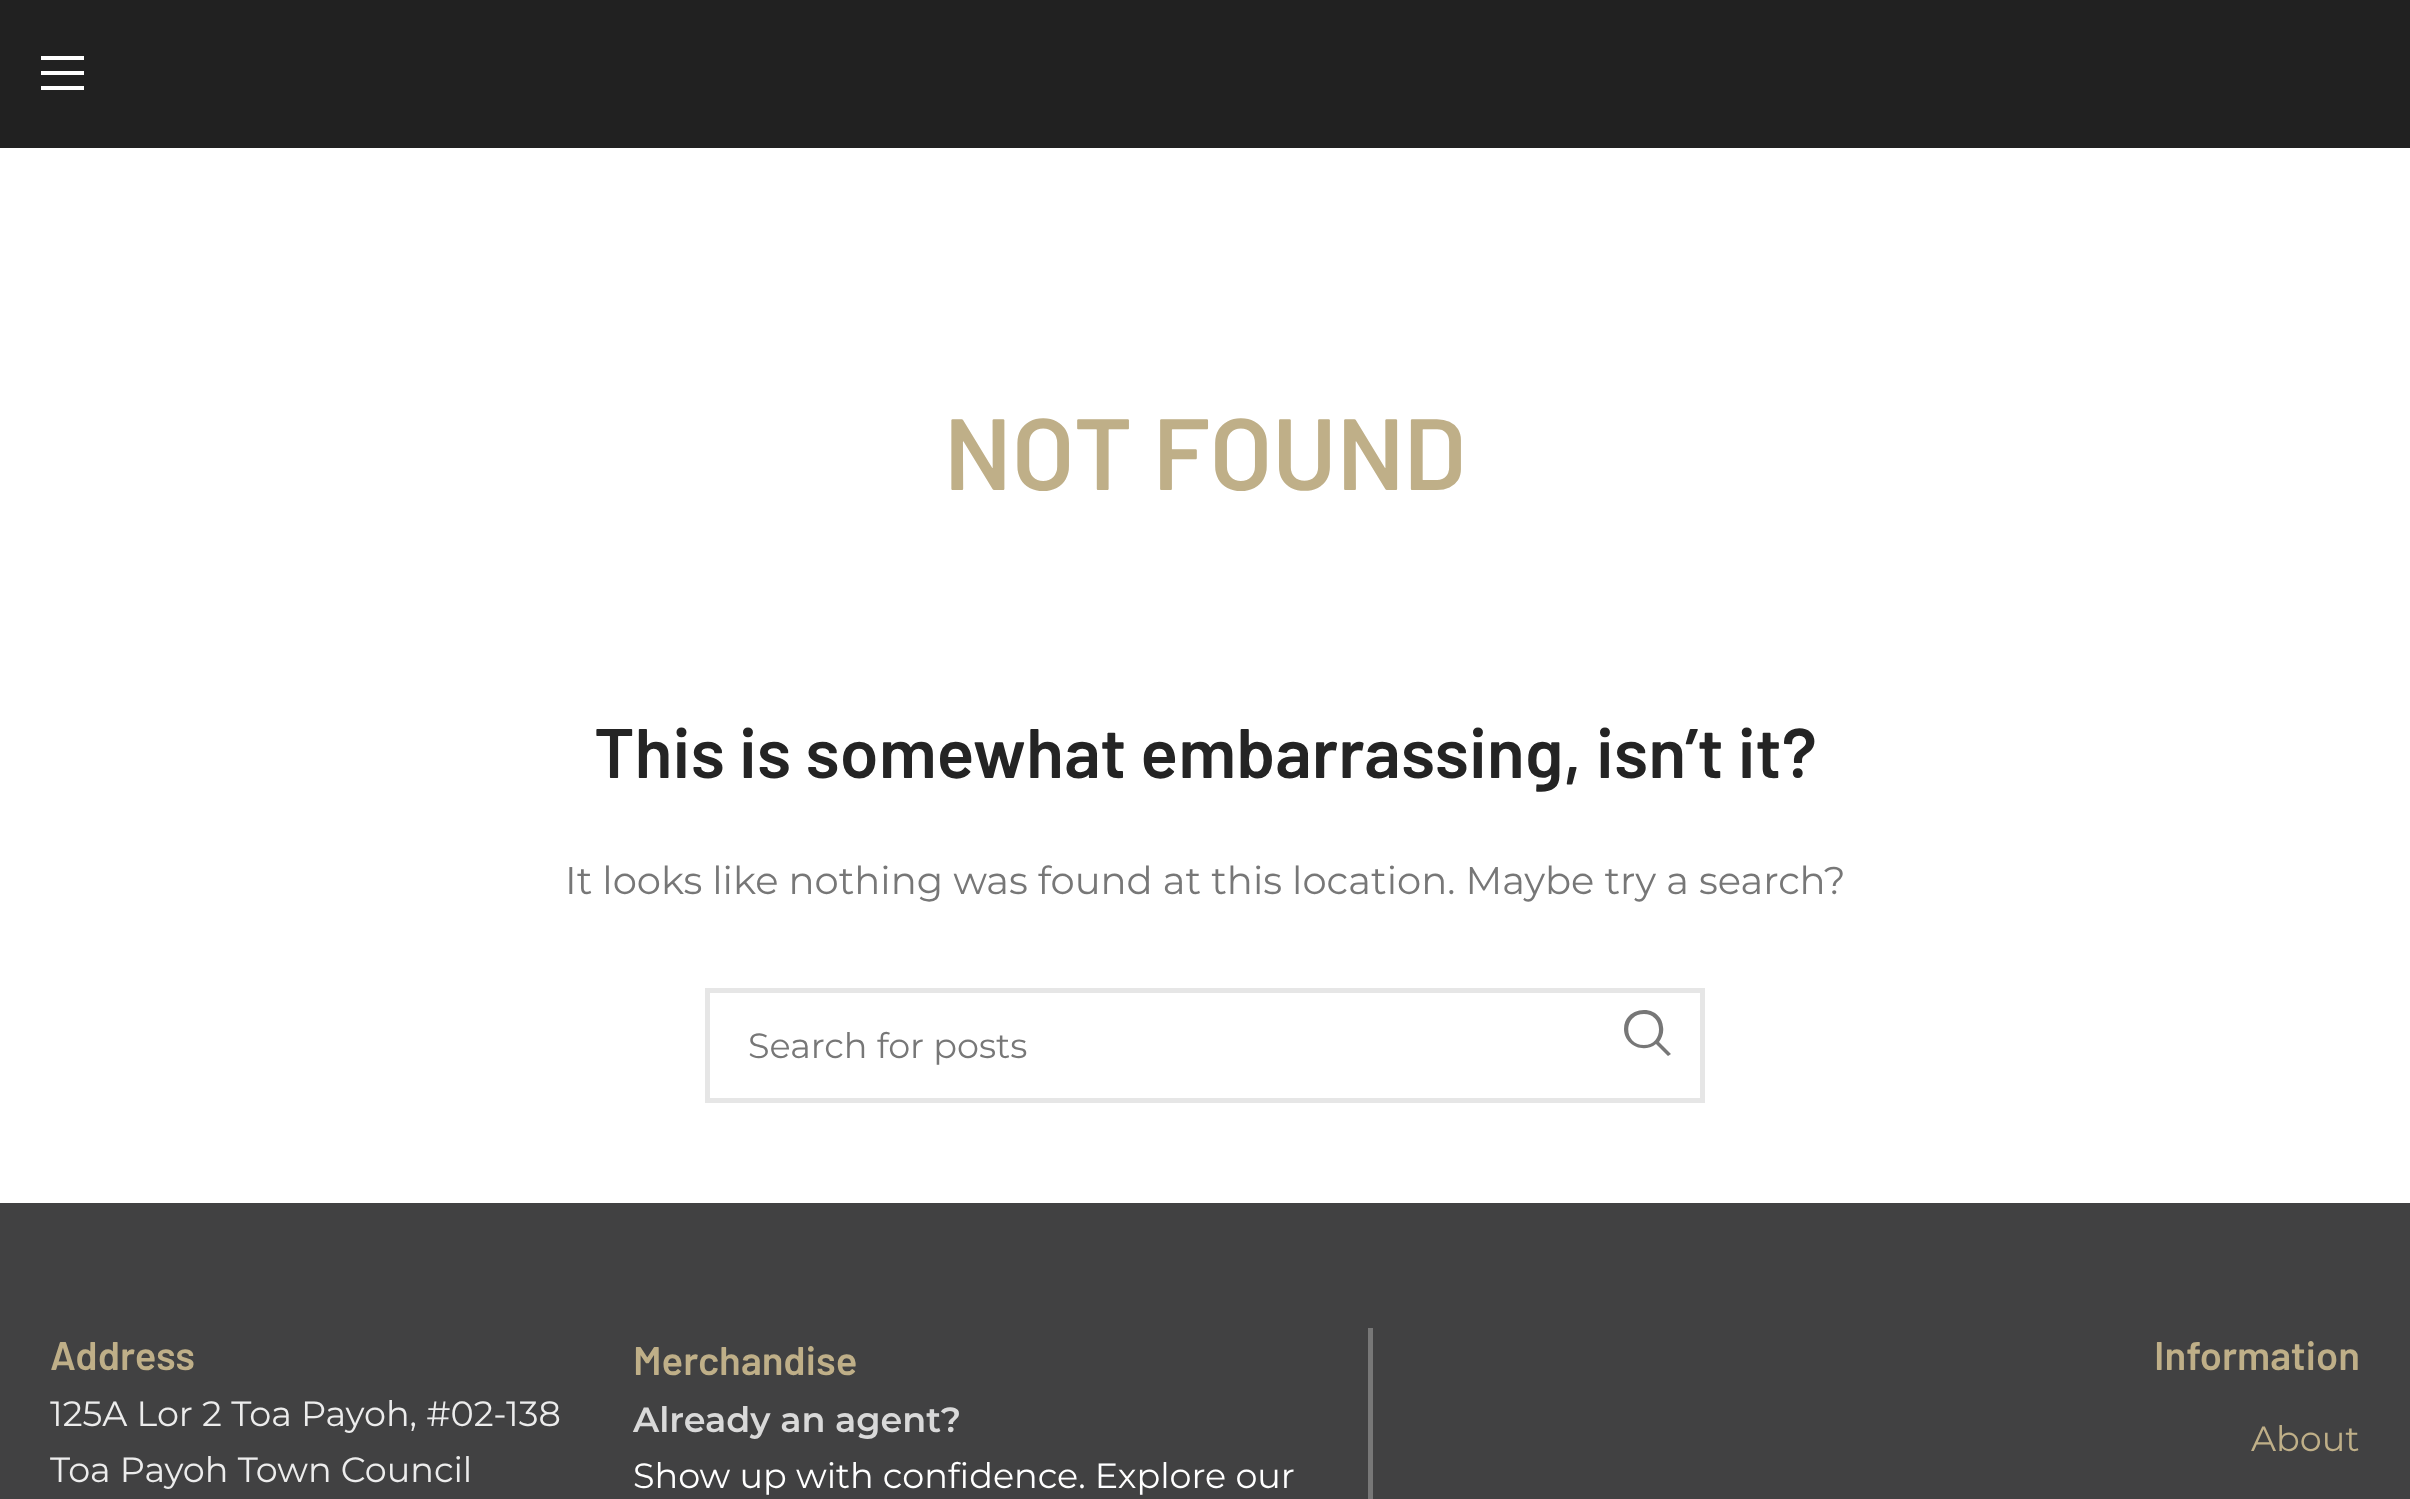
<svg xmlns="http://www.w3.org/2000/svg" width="2410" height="1499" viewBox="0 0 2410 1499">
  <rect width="100%" height="100%" fill="#ffffff"/>
  <rect x="0" y="0" width="2410" height="148" fill="#212121"/>
  <path d="M41 60H84V56H41ZM41 75H84V71H41ZM41 90H84V86H41Z" fill="#ffffff"/>
  <text x="944" y="490" font-family="Barlow" font-size="101.25" font-weight="600" fill="#bfaf88">NOT FOUND</text>
  <text x="594" y="778" font-family="Barlow" font-size="70" font-weight="600" fill="#242424">This is somewhat embarrassing, isn’t it?</text>
  <text x="565" y="894" font-family="Montserrat" font-size="38.5" fill="#777777">It looks like nothing was found at this location. Maybe try a search?</text>
  <rect x="707.5" y="990.5" width="995" height="110" fill="none" stroke="#e6e6e6" stroke-width="5"/>
  <text x="748" y="1058" font-family="Montserrat" font-size="35" fill="#777777">Search for posts</text>
  <path d="M1624 1029C1624 1045 1643 1054 1656 1044L1668 1056L1671 1054L1659 1042C1662 1038 1664 1032 1663 1027C1661 1003 1624 1005 1624 1029ZM1644 1045C1623 1045 1623 1014 1644 1014C1664 1014 1664 1045 1644 1045Z" fill="#777777"/>
  <rect x="0" y="1203" width="2410" height="296" fill="#414142"/>
  <text x="50" y="1370" font-family="Barlow" font-size="40" font-weight="600" fill="#bfaf88">Address</text>
  <text x="50" y="1426" font-family="Montserrat" font-size="35" fill="#ececec">125A Lor 2 Toa Payoh, #02-138</text>
  <text x="50" y="1482" font-family="Montserrat" font-size="35" fill="#ececec">Toa Payoh Town Council</text>
  <text x="633" y="1375" font-family="Barlow" font-size="40" font-weight="600" fill="#bfaf88">Merchandise</text>
  <text x="633" y="1432" font-family="Montserrat" font-size="35" font-weight="600" fill="#d9d9d9">Already an agent?</text>
  <text x="633" y="1488" font-family="Montserrat" font-size="35" fill="#ffffff">Show up with confidence. Explore our</text>
  <rect x="1368" y="1328" width="5" height="171" fill="#777777"/>
  <text x="2154" y="1370" font-family="Barlow" font-size="40" font-weight="600" fill="#bfaf88">Information</text>
  <text x="2251" y="1451" font-family="Montserrat" font-size="35" fill="#bfaf88">About</text>
</svg>
